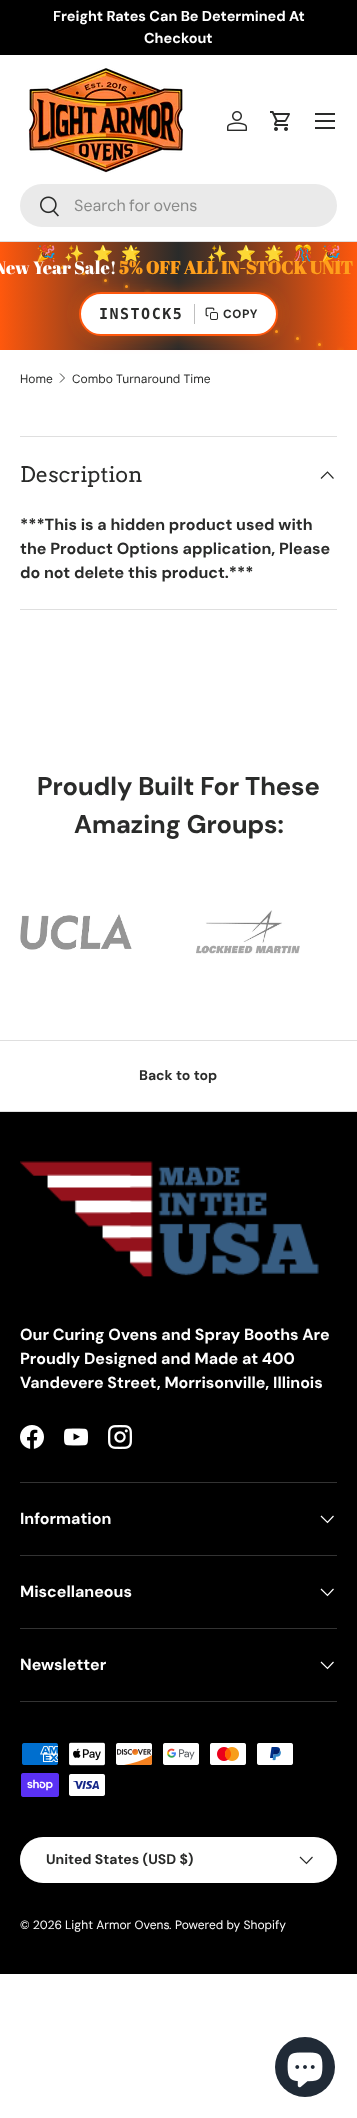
<svg xmlns="http://www.w3.org/2000/svg" width="357" height="2118" viewBox="0 0 357 2118">
  <defs>
    <linearGradient id="g1" gradientUnits="userSpaceOnUse" x1="0" y1="296" x2="357" y2="296"><stop offset="0" stop-color="#ff580d"/><stop offset="0.5" stop-color="#2a2b2a"/><stop offset="1" stop-color="#ff580d"/></linearGradient>
    <filter id="blur1" x="-50%" y="-200%" width="200%" height="500%"><feGaussianBlur stdDeviation="2"/></filter>
    <filter id="blur2" x="-50%" y="-200%" width="200%" height="500%"><feGaussianBlur stdDeviation="8"/></filter>
    <clipPath id="clip1"><rect x="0" y="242" width="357" height="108"/></clipPath>
  </defs>
  <rect width="100%" height="100%" fill="#ffffff"/>
  <rect x="0" y="0" width="357" height="55" fill="#000000"/>
  <text x="53" y="21" font-family="'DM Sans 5'" font-size="14.4" font-weight="bold" fill="#ffffff">Freight Rates Can Be Determined At</text>
  <text x="144" y="43" font-family="'DM Sans 5'" font-size="14.4" font-weight="bold" fill="#ffffff">Checkout</text>
  <rect x="0" y="241" width="357" height="1" fill="#dfdfdf"/>
  <image x="28" y="68" width="155" height="105" href="img1.png"/>
  <image x="227" y="111" width="20" height="20" href="img2.png"/>
  <image x="270" y="111" width="20" height="20" href="img3.png"/>
  <rect x="315" y="113" width="20" height="2" fill="#2a2b2a"/>
  <rect x="315" y="127" width="20" height="2" fill="#2a2b2a"/>
  <rect x="315" y="120" width="20" height="2" fill="#2a2b2a"/>
  <rect x="20" y="184" width="317" height="43" rx="21.5" fill="#eaeaea"/>
  <image x="40" y="196" width="19" height="21" href="img4.png"/>
  <text x="74" y="211" word-spacing="-1" font-family="DM Sans" font-size="16" fill="#8a8b8a">Search for ovens</text>
  <rect x="0" y="242" width="357" height="108" fill="url(#g1)"/>
  <text x="36" y="259" font-family="Noto Color Emoji" font-size="16" fill="#2a2b2a">🎉</text>
  <text x="64" y="259" font-family="Noto Color Emoji" font-size="16" fill="#2a2b2a">✨</text>
  <text x="93" y="259" font-family="Noto Color Emoji" font-size="16" fill="#2a2b2a">⭐</text>
  <text x="121" y="259" font-family="Noto Color Emoji" font-size="16" fill="#2a2b2a">🌟</text>
  <text x="207" y="259" font-family="Noto Color Emoji" font-size="16" fill="#2a2b2a">✨</text>
  <text x="236" y="259" font-family="Noto Color Emoji" font-size="16" fill="#2a2b2a">⭐</text>
  <text x="264" y="259" font-family="Noto Color Emoji" font-size="16" fill="#2a2b2a">🌟</text>
  <text x="293" y="259" font-family="Noto Color Emoji" font-size="16" fill="#2a2b2a">🎊</text>
  <text x="321" y="259" font-family="Noto Color Emoji" font-size="16" fill="#2a2b2a">🎉</text>
  <rect x="39" y="259" width="3" height="3" rx="1.5" fill="#ff9f1c" filter="url(#blur1)"/>
  <circle cx="40.5" cy="260.5" r="1.5" fill="#ff9f1c"/>
  <rect x="61" y="266" width="3" height="3" rx="1.5" fill="#ff9f1c" filter="url(#blur1)"/>
  <circle cx="62.5" cy="267.5" r="1.5" fill="#ff9f1c"/>
  <rect x="82" y="272" width="3" height="3" rx="1.5" fill="#ff9f1c" filter="url(#blur1)"/>
  <circle cx="83.5" cy="273.5" r="1.5" fill="#ff9f1c"/>
  <rect x="104" y="279" width="3" height="3" rx="1.5" fill="#ff9f1c" filter="url(#blur1)"/>
  <circle cx="105.5" cy="280.5" r="1.5" fill="#ff9f1c"/>
  <rect x="125" y="285" width="3" height="3" rx="1.5" fill="#ff9f1c" filter="url(#blur1)"/>
  <circle cx="126.5" cy="286.5" r="1.5" fill="#ff9f1c"/>
  <rect x="275" y="330" width="3" height="3" rx="1.5" fill="#ff9f1c" filter="url(#blur1)"/>
  <circle cx="276.5" cy="331.5" r="1.5" fill="#ff9f1c"/>
  <rect x="296" y="337" width="3" height="3" rx="1.5" fill="#ff9f1c" filter="url(#blur1)"/>
  <circle cx="297.5" cy="338.5" r="1.5" fill="#ff9f1c"/>
  <rect x="79" y="292" width="199" height="44" rx="22" fill="#ff580d" fill-opacity="0.4" filter="url(#blur2)"/>
  <text x="-6" y="274" font-family="Abril Fatface" font-size="18" fill="#ffffff">New Year Sale!</text>
  <text x="119" y="274" font-family="Abril Fatface" font-size="18" font-weight="bold" fill="#ff9f1c">5% OFF ALL IN-STOCK UNIT</text>
  <rect x="146" y="292" width="3" height="3" rx="1.5" fill="#ff9f1c" filter="url(#blur1)"/>
  <rect x="80" y="293" width="197" height="42" rx="21" fill="#ffffff" stroke="#ff580d" stroke-width="2"/>
  <text x="99" y="319" font-family="DejaVu Sans Mono" font-size="15" font-weight="bold" letter-spacing="1.5" fill="#2a2b2a">INSTOCK5</text>
  <rect x="194" y="304" width="1" height="20" fill="#bfbfbf"/>
  <image x="205" y="307" width="13" height="13" href="img5.png"/>
  <text x="223" y="318" font-family="'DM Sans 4'" font-size="12" font-weight="bold" letter-spacing="0.5" fill="#2a2b2a">COPY</text>
  <rect x="318" y="343" width="3" height="3" rx="1.5" fill="#ff9f1c" filter="url(#blur1)"/>
  <circle cx="319.5" cy="344.5" r="1.5" fill="#ff9f1c"/>
  <g clip-path="url(#clip1)">
    <rect x="339" y="350" width="3" height="3" rx="1.5" fill="#ff9f1c" filter="url(#blur1)"/>
  </g>
  <text x="20" y="383" font-family="DM Sans" font-size="12" fill="#2a2b2a">Home</text>
  <path d="M60 373.5L64.5 378L60 382.5" fill="none" stroke="#2a2b2a" stroke-width="0.9"/>
  <text x="72" y="383" font-family="DM Sans" font-size="12" fill="#2a2b2a">Combo Turnaround Time</text>
  <rect x="20" y="436" width="317" height="1" fill="#dfdfdf"/>
  <rect x="20" y="609" width="317" height="1" fill="#dfdfdf"/>
  <text x="20" y="482" font-family="Arvo" font-size="21.5" fill="#2a2b2a">Description</text>
  <path d="M333.5 478.5L327.5 472L321 478.5" fill="none" stroke="#2a2b2a" stroke-width="1.2"/>
  <text x="20" y="530" font-family="'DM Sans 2'" font-size="16" font-weight="bold" fill="#2a2b2a">***This is a hidden product used with</text>
  <text x="20" y="554" font-family="'DM Sans 2'" font-size="16" font-weight="bold" fill="#2a2b2a">the Product Options application, Please</text>
  <text x="20" y="578" font-family="'DM Sans 2'" font-size="16" font-weight="bold" fill="#2a2b2a">do not delete this product.***</text>
  <text x="37" y="795" font-family="'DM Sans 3'" font-size="25.6" font-weight="bold" fill="#2a2b2a">Proudly Built For These</text>
  <text x="74" y="833" font-family="'DM Sans 3'" font-size="25.6" font-weight="bold" fill="#2a2b2a">Amazing Groups:</text>
  <image x="20" y="914" width="112" height="36" href="img6.png"/>
  <image x="196" y="910" width="104" height="44" href="img7.png"/>
  <rect x="0" y="1040" width="357" height="1" fill="#dfdfdf"/>
  <rect x="0" y="1111" width="357" height="1" fill="#dfdfdf"/>
  <text x="139" y="1080" font-family="DM Sans" font-size="14" font-weight="bold" fill="#2a2b2a">Back to top</text>
  <rect x="0" y="1112" width="357" height="862" fill="#000000"/>
  <image x="20" y="1161" width="299" height="116" href="img8.png"/>
  <text x="20" y="1340" font-family="'DM Sans 2'" font-size="16" font-weight="bold" fill="#ffffff">Our Curing Ovens and Spray Booths Are</text>
  <text x="20" y="1364" font-family="'DM Sans 2'" font-size="16" font-weight="bold" fill="#ffffff">Proudly Designed and Made at 400</text>
  <text x="20" y="1388" font-family="'DM Sans 2'" font-size="16" font-weight="bold" fill="#ffffff">Vandevere Street, Morrisonville, Illinois</text>
  <image x="20" y="1425" width="24" height="24" href="img9.png"/>
  <image x="64" y="1428" width="24" height="18" href="img10.png"/>
  <image x="108" y="1425" width="24" height="24" href="img11.png"/>
  <rect x="20" y="1482" width="317" height="1" fill="#333333"/>
  <rect x="20" y="1555" width="317" height="1" fill="#333333"/>
  <text x="20" y="1524" font-family="'DM Sans 2'" font-size="16" font-weight="bold" fill="#ffffff">Information</text>
  <path d="M333.5 1516L327.5 1522.5L321 1516" fill="none" stroke="#ffffff" stroke-width="1.2"/>
  <rect x="20" y="1628" width="317" height="1" fill="#333333"/>
  <text x="20" y="1597" font-family="'DM Sans 2'" font-size="16" font-weight="bold" fill="#ffffff">Miscellaneous</text>
  <path d="M333.5 1589L327.5 1595.5L321 1589" fill="none" stroke="#ffffff" stroke-width="1.2"/>
  <rect x="20" y="1701" width="317" height="1" fill="#333333"/>
  <text x="20" y="1670" font-family="'DM Sans 2'" font-size="16" font-weight="bold" fill="#ffffff">Newsletter</text>
  <path d="M333.5 1662L327.5 1668.5L321 1662" fill="none" stroke="#ffffff" stroke-width="1.2"/>
  <image x="22" y="1743" width="36" height="22" href="img12.png"/>
  <image x="69" y="1742" width="36" height="24" href="img13.png"/>
  <image x="116" y="1743" width="37" height="22" href="img14.png"/>
  <image x="163" y="1743" width="36" height="22" href="img15.png"/>
  <image x="210" y="1743" width="36" height="22" href="img16.png"/>
  <image x="257" y="1743" width="36" height="22" href="img17.png"/>
  <image x="21" y="1773" width="38" height="24" href="img18.png"/>
  <image x="69" y="1774" width="36" height="22" href="img19.png"/>
  <rect x="20" y="1837" width="317" height="46" rx="23" fill="#ffffff"/>
  <rect x="21" y="1838" width="315" height="44" rx="22" fill="none" stroke="#ffffff" stroke-opacity="0.2" stroke-width="2"/>
  <text x="46" y="1864" font-family="DM Sans" font-size="14" font-weight="bold" fill="#2a2b2a">United States (USD $)</text>
  <path d="M312.5 1857L306.5 1863.5L300 1857" fill="none" stroke="#2a2b2a" stroke-width="1.2"/>
  <text x="20" y="1929" font-family="DM Sans" font-size="12" fill="#ffffff">© 2026</text>
  <text x="65" y="1929" font-family="DM Sans" font-size="12" fill="#ffffff">Light Armor Ovens</text>
  <text x="169" y="1929" font-family="DM Sans" font-size="12" fill="#ffffff">.</text>
  <text x="175" y="1929" font-family="DM Sans" font-size="12" fill="#ffffff">Powered by Shopify</text>
  <circle cx="305" cy="2067" r="30" fill="#202a36"/>
  <image x="287" y="2052" width="36" height="36" href="img20.png"/>
</svg>
